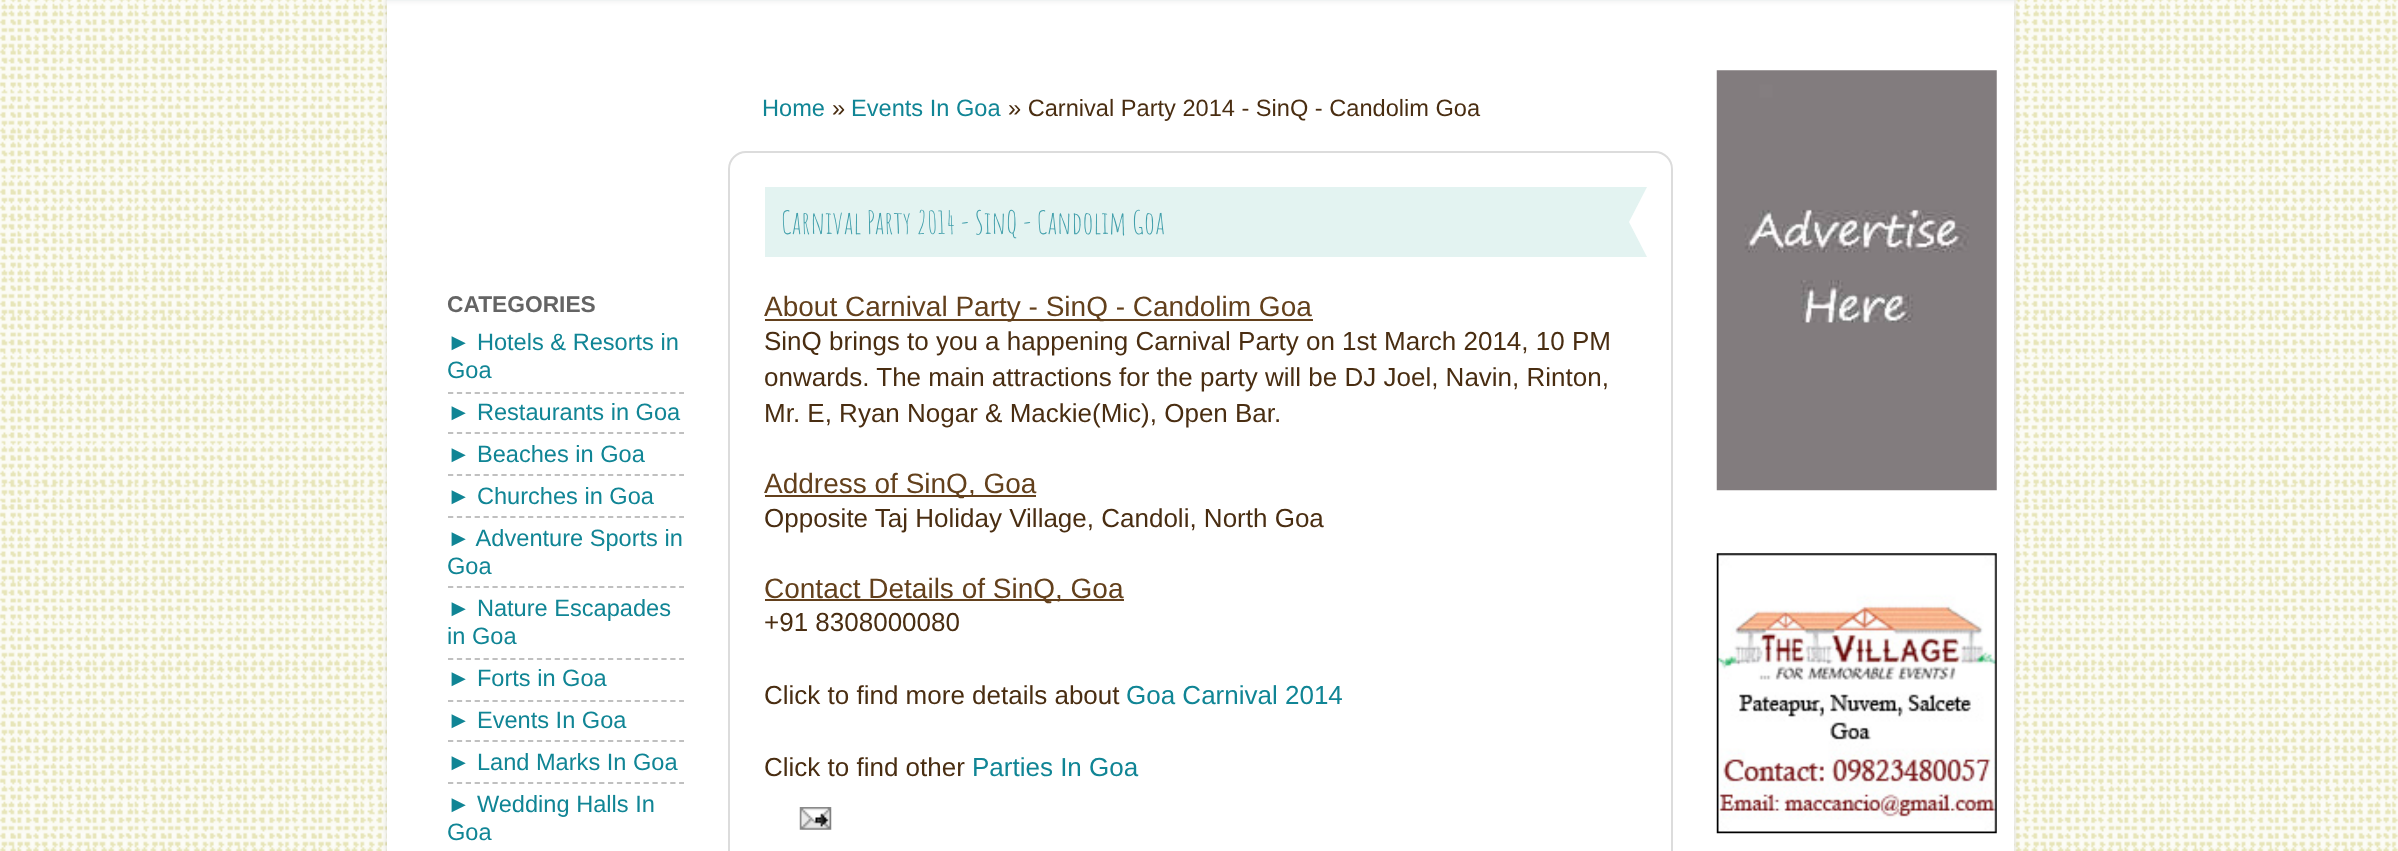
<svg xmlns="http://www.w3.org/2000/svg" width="2398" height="851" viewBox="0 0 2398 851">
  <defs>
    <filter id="blur1" x="-50%" y="-200%" width="200%" height="500%"><feGaussianBlur stdDeviation="2.5"/></filter>
  </defs>
  <rect width="100%" height="100%" fill="#ffffff"/>
  <image x="0" y="0" width="2398" height="851" href="img1.png"/>
  <rect x="387" y="-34" width="1627" height="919" rx="26" fill="#000000" fill-opacity="0.15" filter="url(#blur1)"/>
  <rect x="387" y="9" width="1627" height="842" fill="#ffffff"/>
  <image x="386" y="0" width="1629" height="9" href="img2.png"/>
  <text x="447" y="312" font-family="Liberation Sans" font-size="22.75" font-weight="bold" fill="#646464">CATEGORIES</text>
  <text x="447" y="350" font-family="Liberation Sans" font-size="23.6" fill="#108595">► Hotels &amp; Resorts in</text>
  <text x="447" y="378" font-family="Liberation Sans" font-size="23.6" fill="#108595">Goa</text>
  <path d="M448 393H684" fill="none" stroke="#c0c0c0" stroke-width="1.8" stroke-dasharray="5.25 3.64"/>
  <text x="447" y="420" font-family="Liberation Sans" font-size="23.6" fill="#108595">► Restaurants in Goa</text>
  <path d="M448 433H684" fill="none" stroke="#c0c0c0" stroke-width="1.8" stroke-dasharray="5.25 3.64"/>
  <text x="447" y="462" font-family="Liberation Sans" font-size="23.6" fill="#108595">► Beaches in Goa</text>
  <path d="M448 475H684" fill="none" stroke="#c0c0c0" stroke-width="1.8" stroke-dasharray="5.25 3.64"/>
  <text x="447" y="504" font-family="Liberation Sans" font-size="23.6" fill="#108595">► Churches in Goa</text>
  <path d="M448 517H684" fill="none" stroke="#c0c0c0" stroke-width="1.8" stroke-dasharray="5.25 3.64"/>
  <text x="447" y="546" font-family="Liberation Sans" font-size="23.6" fill="#108595">► Adventure Sports in</text>
  <text x="447" y="574" font-family="Liberation Sans" font-size="23.6" fill="#108595">Goa</text>
  <path d="M448 587H684" fill="none" stroke="#c0c0c0" stroke-width="1.8" stroke-dasharray="5.25 3.64"/>
  <text x="447" y="616" font-family="Liberation Sans" font-size="23.6" fill="#108595">► Nature Escapades</text>
  <text x="447" y="644" font-family="Liberation Sans" font-size="23.6" fill="#108595">in Goa</text>
  <path d="M448 659H684" fill="none" stroke="#c0c0c0" stroke-width="1.8" stroke-dasharray="5.25 3.64"/>
  <text x="447" y="686" font-family="Liberation Sans" font-size="23.6" fill="#108595">► Forts in Goa</text>
  <path d="M448 701H684" fill="none" stroke="#c0c0c0" stroke-width="1.8" stroke-dasharray="5.25 3.64"/>
  <text x="447" y="728" font-family="Liberation Sans" font-size="23.6" fill="#108595">► Events In Goa</text>
  <path d="M448 741H684" fill="none" stroke="#c0c0c0" stroke-width="1.8" stroke-dasharray="5.25 3.64"/>
  <text x="447" y="770" font-family="Liberation Sans" font-size="23.6" fill="#108595">► Land Marks In Goa</text>
  <path d="M448 783H684" fill="none" stroke="#c0c0c0" stroke-width="1.8" stroke-dasharray="5.25 3.64"/>
  <text x="447" y="812" font-family="Liberation Sans" font-size="23.6" fill="#108595">► Wedding Halls In</text>
  <text x="447" y="840" font-family="Liberation Sans" font-size="23.6" fill="#108595">Goa</text>
  <text x="762" y="116" font-family="Liberation Sans" font-size="23.6" fill="#108595">Home</text>
  <text x="832" y="116" font-family="Liberation Sans" font-size="23.6" fill="#492d11">»</text>
  <text x="851" y="116" font-family="Liberation Sans" font-size="23.6" fill="#108595">Events In Goa</text>
  <text x="1008" y="116" font-family="Liberation Sans" font-size="23.6" fill="#492d11">» Carnival Party 2014 - SinQ - Candolim Goa</text>
  <rect x="729" y="152" width="943" height="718" rx="17" fill="none" stroke="#dcdcdc" stroke-width="2"/>
  <rect x="765" y="187" width="847" height="70" fill="#e3f3f1"/>
  <text x="781" y="234" font-family="Amatic SC" font-size="31.5" fill="#419fab">Carnival Party 2014 - SinQ - Candolim Goa</text>
  <path d="M1612 187H1647L1629 222Z" fill="#e3f3f1"/>
  <path d="M1647 257H1612L1629 222Z" fill="#e3f3f1"/>
  <rect x="1612" y="187" width="17" height="70" fill="#e3f3f1"/>
  <rect x="765" y="319" width="548" height="2" fill="#63401c"/>
  <text x="764" y="316" font-family="Liberation Sans" font-size="28" fill="#63401c">About Carnival Party - SinQ - Candolim Goa</text>
  <text x="764" y="350" font-family="Liberation Sans" font-size="26" fill="#492d11">SinQ brings to you a happening Carnival Party on 1st March 2014, 10 PM</text>
  <text x="764" y="386" font-family="Liberation Sans" font-size="26" fill="#492d11">onwards. The main attractions for the party will be DJ Joel, Navin, Rinton,</text>
  <text x="764" y="422" font-family="Liberation Sans" font-size="26" fill="#492d11">Mr. E, Ryan Nogar &amp; Mackie(Mic), Open Bar.</text>
  <rect x="765" y="495" width="271" height="2" fill="#63401c"/>
  <text x="764" y="493" font-family="Liberation Sans" font-size="28" fill="#63401c">Address of SinQ, Goa</text>
  <text x="764" y="527" font-family="Liberation Sans" font-size="26" fill="#492d11">Opposite Taj Holiday Village, Candoli, North Goa</text>
  <rect x="765" y="599" width="359" height="2" fill="#63401c"/>
  <text x="764" y="598" font-family="Liberation Sans" font-size="28" fill="#63401c">Contact Details of SinQ, Goa</text>
  <text x="764" y="631" font-family="Liberation Sans" font-size="26" fill="#492d11">+91 8308000080</text>
  <text x="764" y="704" font-family="Liberation Sans" font-size="26" fill="#492d11">Click to find more details about</text>
  <text x="1126" y="704" font-family="Liberation Sans" font-size="26" fill="#108595">Goa Carnival 2014</text>
  <text x="764" y="776" font-family="Liberation Sans" font-size="26" fill="#492d11">Click to find other</text>
  <text x="972" y="776" font-family="Liberation Sans" font-size="26" fill="#108595">Parties In Goa</text>
  <image x="799" y="807" width="33" height="23" href="img3.png"/>
  <image x="1716" y="70" width="281" height="421" href="img4.png"/>
  <image x="1716" y="553" width="281" height="281" href="img5.png"/>
</svg>
